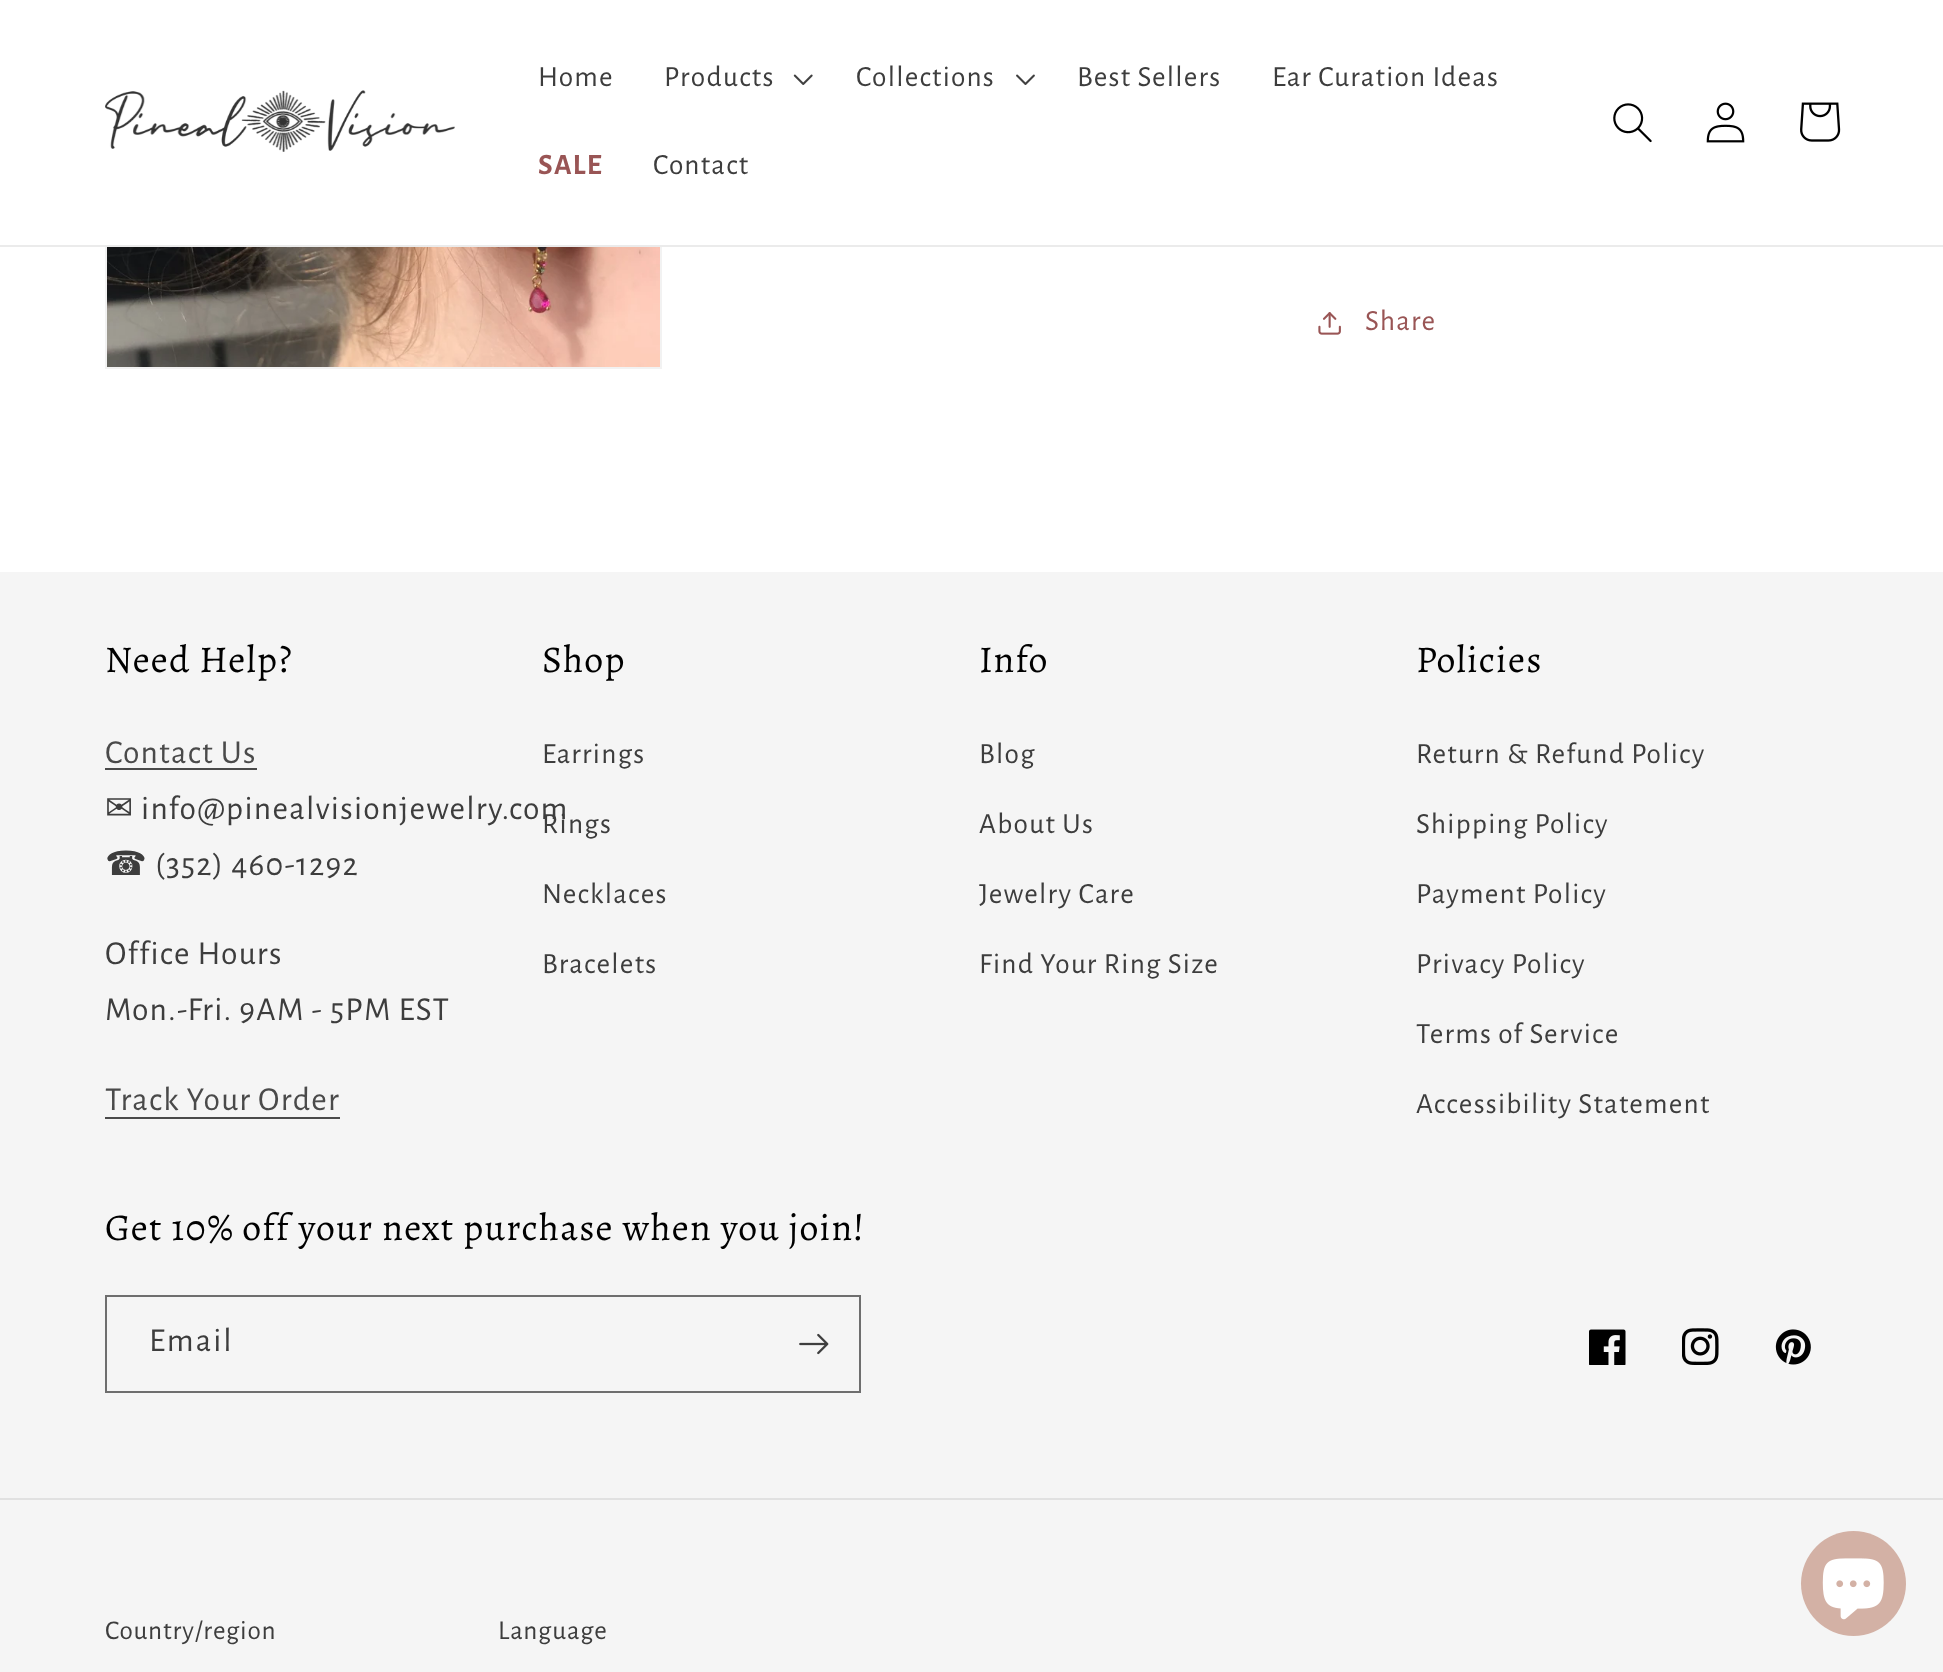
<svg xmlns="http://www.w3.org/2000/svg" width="1943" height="1672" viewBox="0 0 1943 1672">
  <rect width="100%" height="100%" fill="#ffffff"/>
  <rect x="106" y="-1" width="555" height="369" fill="none" stroke="#f2f2f2" stroke-width="2"/>
  <rect x="105" y="0" width="557" height="245" fill="#ffffff"/>
  <rect x="0" y="245" width="1943" height="2" fill="#ebebeb"/>
  <image x="105" y="90" width="350" height="62" href="img1.png"/>
  <text x="538" y="86" font-family="Alegreya Sans" font-size="29.4" letter-spacing="1.25" fill="#3d3d3d">Home</text>
  <text x="664" y="86" font-family="Alegreya Sans" font-size="29.4" letter-spacing="1.25" fill="#3d3d3d">Products</text>
  <image x="793" y="74" width="20" height="11" href="img2.png"/>
  <text x="856" y="86" font-family="Alegreya Sans" font-size="29.4" letter-spacing="1.25" fill="#3d3d3d">Collections</text>
  <image x="1016" y="74" width="19" height="11" href="img3.png"/>
  <text x="1077" y="86" font-family="Alegreya Sans" font-size="29.4" letter-spacing="1.25" fill="#3d3d3d">Best Sellers</text>
  <text x="1272" y="86" font-family="Alegreya Sans" font-size="29.4" letter-spacing="1.25" fill="#3d3d3d">Ear Curation Ideas</text>
  <text x="538" y="174" font-family="Alegreya Sans" font-size="29.4" font-weight="bold" letter-spacing="1.25" fill="#995555">SALE</text>
  <text x="653" y="174" font-family="Alegreya Sans" font-size="29.4" letter-spacing="1.25" fill="#3d3d3d">Contact</text>
  <image x="1613" y="103" width="39" height="40" href="img4.png"/>
  <image x="1706" y="102" width="39" height="41" href="img5.png"/>
  <image x="1800" y="102" width="41" height="40" href="img6.png"/>
  <image x="107" y="247" width="553" height="120" href="img7.png"/>
  <image x="1318" y="312" width="23" height="23" href="img8.png"/>
  <text x="1365" y="330" font-family="Alegreya Sans" font-size="29.4" letter-spacing="1.25" fill="#995555">Share</text>
  <rect x="0" y="572" width="1943" height="1100" fill="#f5f5f5"/>
  <text x="105" y="672" font-family="Alegreya" font-size="37.8" letter-spacing="1.25" fill="#000000">Need Help?</text>
  <text x="105" y="763" font-family="Alegreya Sans" font-size="33.6" letter-spacing="1.25" fill="#4a4a4a">Contact Us</text>
  <rect x="105" y="768" width="152" height="2" fill="#4a4a4a"/>
  <text x="105" y="819" font-family="DejaVu Sans" font-size="33.6" letter-spacing="1.25" fill="#3d3d3d">✉</text>
  <text x="141" y="819" font-family="Alegreya Sans" font-size="33.6" letter-spacing="1.25" fill="#3d3d3d">info@pinealvisionjewelry.com</text>
  <text x="105" y="875" font-family="DejaVu Sans" font-size="33.6" letter-spacing="1.25" fill="#3d3d3d">☎</text>
  <text x="155" y="875" font-family="Alegreya Sans" font-size="33.6" letter-spacing="1.25" fill="#3d3d3d">(352) 460-1292</text>
  <text x="105" y="964" font-family="Alegreya Sans" font-size="33.6" letter-spacing="1.25" fill="#3d3d3d">Office Hours</text>
  <text x="105" y="1020" font-family="Alegreya Sans" font-size="33.6" letter-spacing="1.25" fill="#3d3d3d">Mon.-Fri. 9AM - 5PM EST</text>
  <text x="105" y="1110" font-family="Alegreya Sans" font-size="33.6" letter-spacing="1.25" fill="#4a4a4a">Track Your Order</text>
  <rect x="105" y="1117" width="235" height="2" fill="#4a4a4a"/>
  <text x="542" y="672" font-family="Alegreya" font-size="37.8" letter-spacing="1.25" fill="#000000">Shop</text>
  <text x="542" y="763" font-family="Alegreya Sans" font-size="29.4" letter-spacing="1.25" fill="#3d3d3d">Earrings</text>
  <text x="542" y="833" font-family="Alegreya Sans" font-size="29.4" letter-spacing="1.25" fill="#3d3d3d">Rings</text>
  <text x="542" y="903" font-family="Alegreya Sans" font-size="29.4" letter-spacing="1.25" fill="#3d3d3d">Necklaces</text>
  <text x="542" y="973" font-family="Alegreya Sans" font-size="29.4" letter-spacing="1.25" fill="#3d3d3d">Bracelets</text>
  <text x="979" y="672" font-family="Alegreya" font-size="37.8" letter-spacing="1.25" fill="#000000">Info</text>
  <text x="979" y="763" font-family="Alegreya Sans" font-size="29.4" letter-spacing="1.25" fill="#3d3d3d">Blog</text>
  <text x="979" y="833" font-family="Alegreya Sans" font-size="29.4" letter-spacing="1.25" fill="#3d3d3d">About Us</text>
  <text x="979" y="903" font-family="Alegreya Sans" font-size="29.4" letter-spacing="1.25" fill="#3d3d3d">Jewelry Care</text>
  <text x="979" y="973" font-family="Alegreya Sans" font-size="29.4" letter-spacing="1.25" fill="#3d3d3d">Find Your Ring Size</text>
  <text x="1416" y="672" font-family="Alegreya" font-size="37.8" letter-spacing="1.25" fill="#000000">Policies</text>
  <text x="1416" y="763" font-family="Alegreya Sans" font-size="29.4" letter-spacing="1.25" fill="#3d3d3d">Return &amp; Refund Policy</text>
  <text x="1416" y="833" font-family="Alegreya Sans" font-size="29.4" letter-spacing="1.25" fill="#3d3d3d">Shipping Policy</text>
  <text x="1416" y="903" font-family="Alegreya Sans" font-size="29.4" letter-spacing="1.25" fill="#3d3d3d">Payment Policy</text>
  <text x="1416" y="973" font-family="Alegreya Sans" font-size="29.4" letter-spacing="1.25" fill="#3d3d3d">Privacy Policy</text>
  <text x="1416" y="1043" font-family="Alegreya Sans" font-size="29.4" letter-spacing="1.25" fill="#3d3d3d">Terms of Service</text>
  <text x="1416" y="1113" font-family="Alegreya Sans" font-size="29.4" letter-spacing="1.25" fill="#3d3d3d">Accessibility Statement</text>
  <text x="105" y="1240" font-family="Alegreya" font-size="37.8" letter-spacing="1.25" fill="#000000">Get 10% off your next purchase when you join!</text>
  <rect x="106" y="1296" width="754" height="96" fill="none" stroke="#6e6e6e" stroke-width="2"/>
  <text x="149" y="1351" font-family="Alegreya Sans" font-size="33.6" letter-spacing="2" fill="#3d3d3d">Email</text>
  <image x="799" y="1333" width="30" height="22" href="img9.png"/>
  <image x="1589" y="1329" width="37" height="36" href="img10.png"/>
  <image x="1682" y="1328" width="37" height="37" href="img11.png"/>
  <image x="1775" y="1329" width="36" height="36" href="img12.png"/>
  <rect x="0" y="1498" width="1943" height="2" fill="#e1e1e1"/>
  <text x="105" y="1639" font-family="Alegreya Sans" font-size="27.25" letter-spacing="0.8" fill="#3d3d3d">Country/region</text>
  <text x="498" y="1639" font-family="Alegreya Sans" font-size="27.25" letter-spacing="0.8" fill="#3d3d3d">Language</text>
  <circle cx="1853.5" cy="1583.5" r="52.5" fill="#d3b1a5"/>
  <image x="1822" y="1558" width="62" height="62" href="img13.png"/>
</svg>
